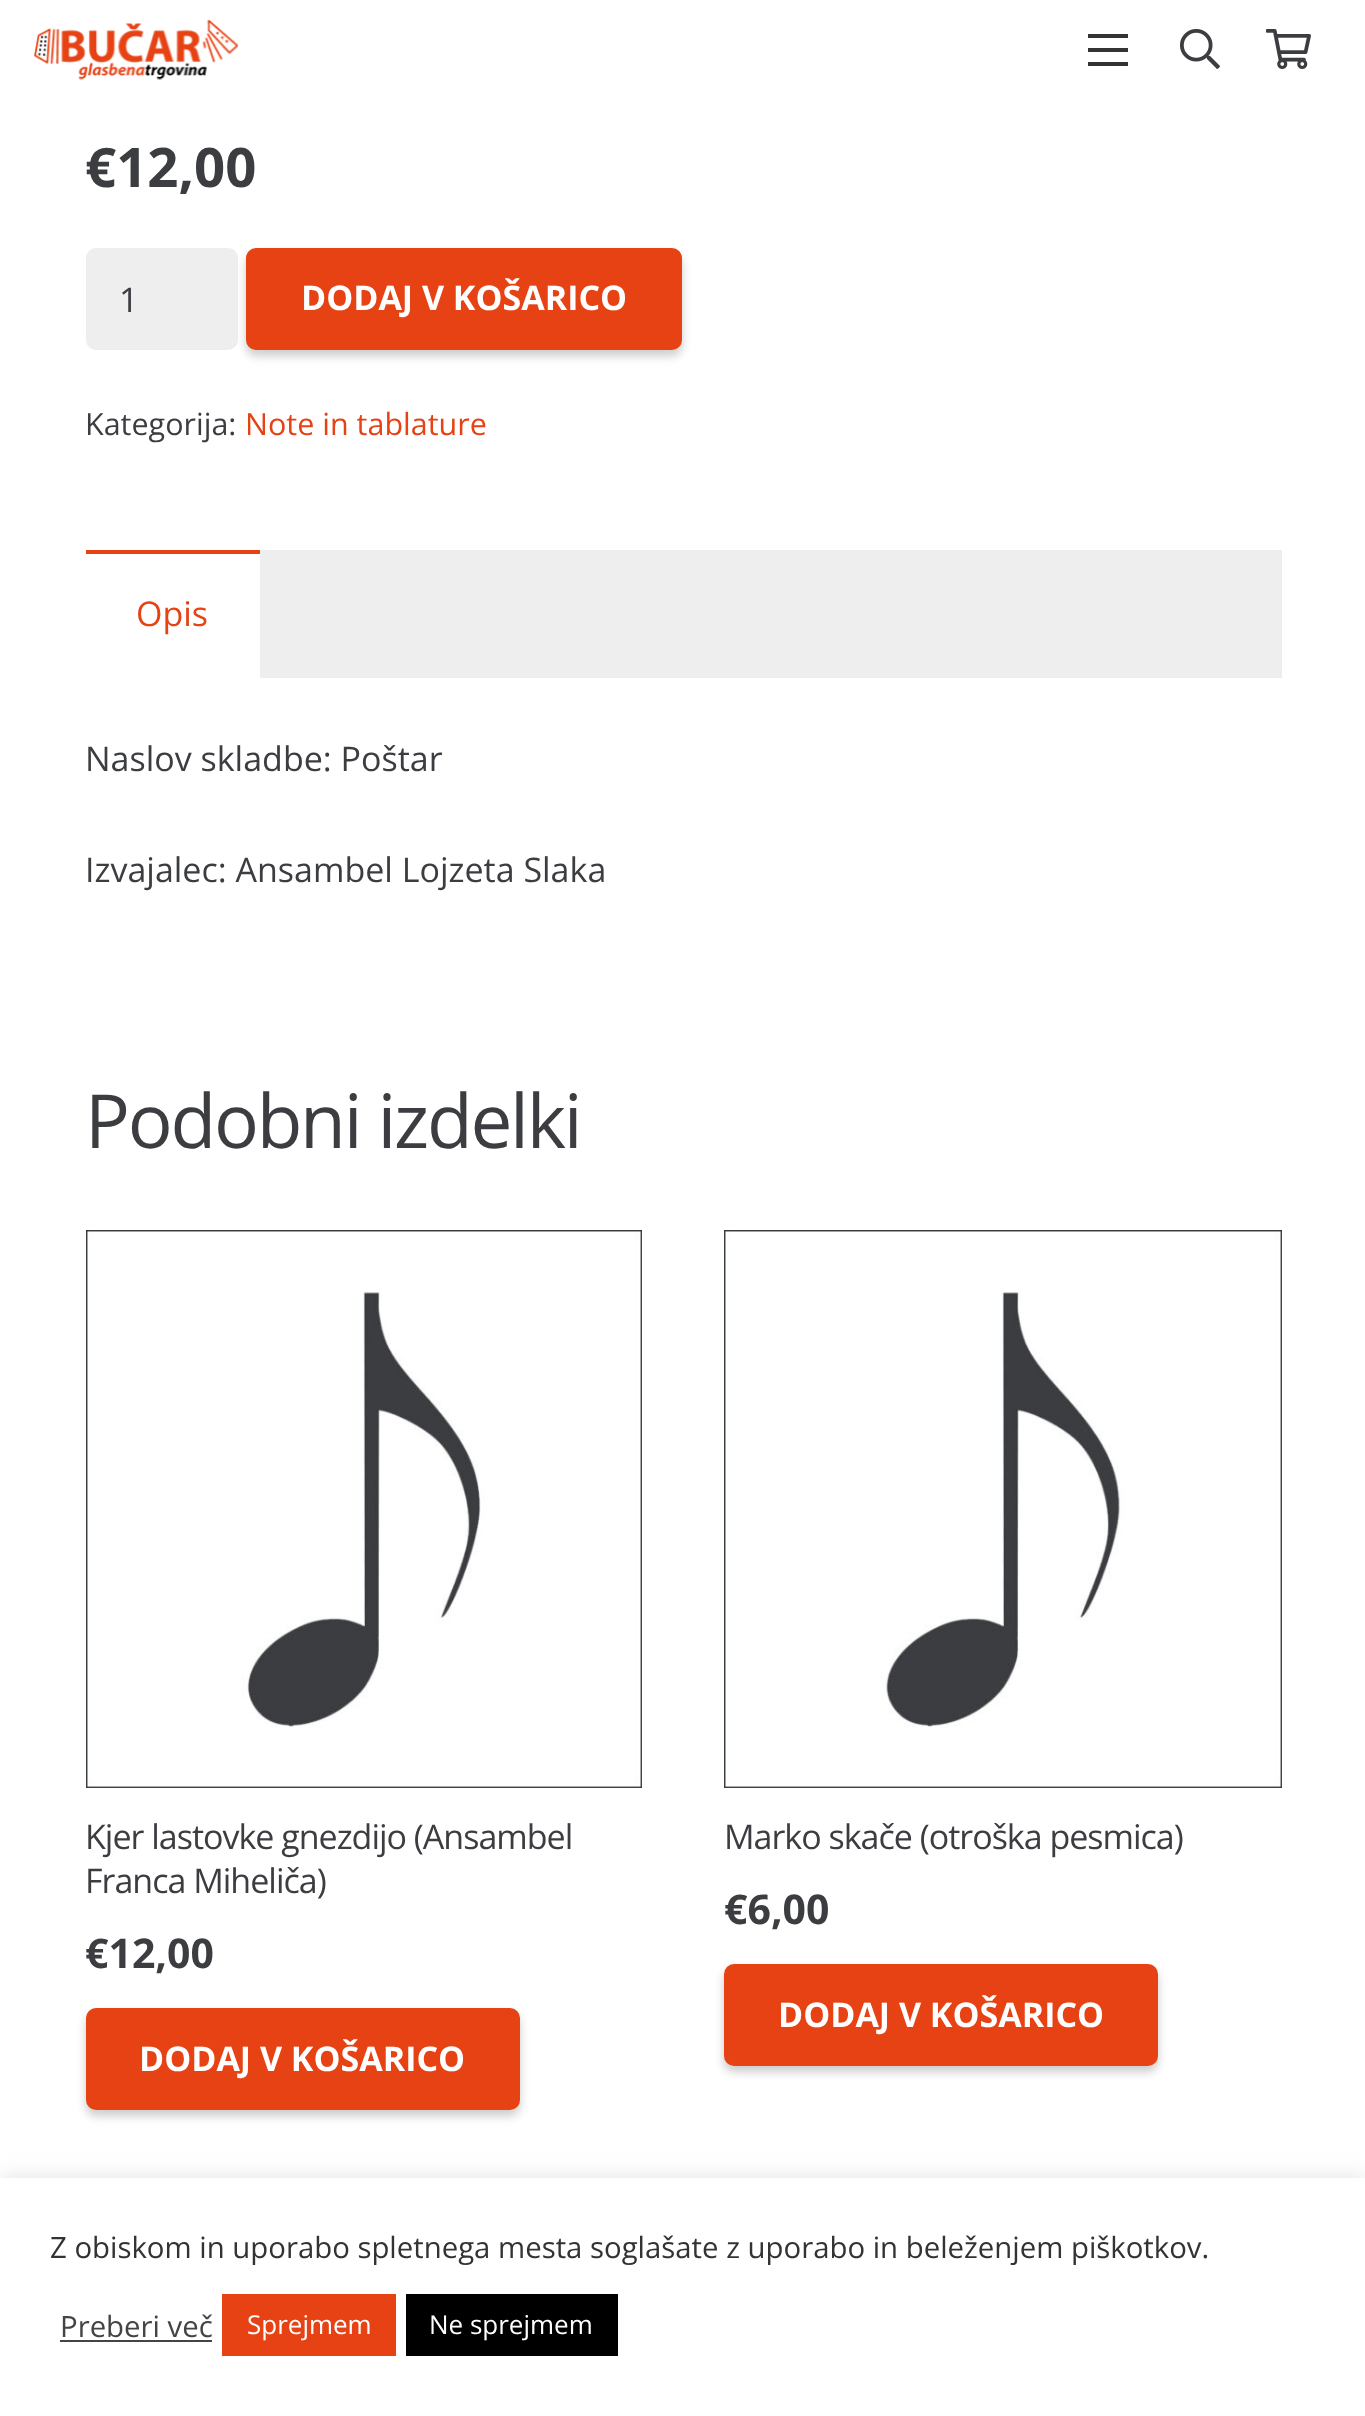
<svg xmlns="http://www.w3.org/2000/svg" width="1365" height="2416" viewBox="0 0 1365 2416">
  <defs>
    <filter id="blur1" x="-50%" y="-200%" width="200%" height="500%"><feGaussianBlur stdDeviation="5"/></filter>
    <filter id="blur2" x="-50%" y="-200%" width="200%" height="500%"><feGaussianBlur stdDeviation="10"/></filter>
  </defs>
  <rect width="100%" height="100%" fill="#ffffff"/>
  <image x="34" y="20" width="204" height="60" href="img1.png"/>
  <rect x="1088" y="48" width="40" height="4" fill="#333333"/>
  <rect x="1088" y="34" width="40" height="4" fill="#333333"/>
  <rect x="1088" y="62" width="40" height="4" fill="#333333"/>
  <image x="1180" y="29" width="40" height="40" href="img2.png"/>
  <image x="1266" y="29" width="45" height="40" href="img3.png"/>
  <text x="85" y="187" font-family="Open Sans" font-size="54.5" font-weight="bold" fill="#3b3d40">€12,00</text>
  <rect x="86" y="248" width="152" height="102" rx="10" fill="#eeeeee"/>
  <text x="119" y="312" font-family="Open Sans" font-size="34" fill="#3b3d40">1</text>
  <rect x="246" y="254" width="436" height="102" rx="10" fill="#000000" fill-opacity="0.2" filter="url(#blur1)"/>
  <rect x="246" y="248" width="436" height="102" rx="10" fill="#e64214"/>
  <text x="301" y="310" font-family="Open Sans" font-size="34" font-weight="bold" fill="#ffffff">DODAJ V KOŠARICO</text>
  <text x="85" y="435" font-family="Open Sans" font-size="30.5" fill="#3b3d40">Kategorija:</text>
  <text x="245" y="435" font-family="Open Sans" font-size="30.5" fill="#e64214">Note in tablature</text>
  <rect x="260" y="550" width="1022" height="128" fill="#eeeeee"/>
  <rect x="86" y="550" width="174" height="4" fill="#e64214"/>
  <text x="136" y="626" font-family="Open Sans" font-size="34" fill="#e64214">Opis</text>
  <text x="85" y="771" font-family="Open Sans" font-size="34" fill="#3b3d40">Naslov skladbe: Poštar</text>
  <text x="85" y="882" font-family="Open Sans" font-size="34" fill="#3b3d40">Izvajalec: Ansambel Lojzeta Slaka</text>
  <text x="85" y="1148" font-family="Open Sans" font-size="74.75" letter-spacing="-2.25" fill="#3b3d40">Podobni izdelki</text>
  <image x="86" y="1230" width="556" height="558" href="img4.png"/>
  <text x="85" y="1849" font-family="Open Sans" font-size="34" letter-spacing="-1" fill="#3b3d40">Kjer lastovke gnezdijo (Ansambel</text>
  <text x="85" y="1893" font-family="Open Sans" font-size="34" letter-spacing="-1" fill="#3b3d40">Franca Miheliča)</text>
  <text x="85" y="1968" font-family="Open Sans" font-size="41" font-weight="bold" fill="#3b3d40">€12,00</text>
  <rect x="86" y="2014" width="434" height="102" rx="10" fill="#000000" fill-opacity="0.2" filter="url(#blur1)"/>
  <rect x="86" y="2008" width="434" height="102" rx="10" fill="#e64214"/>
  <text x="139" y="2071" font-family="Open Sans" font-size="34" font-weight="bold" fill="#ffffff">DODAJ V KOŠARICO</text>
  <image x="724" y="1230" width="558" height="558" href="img5.png"/>
  <text x="724" y="1849" font-family="Open Sans" font-size="34" letter-spacing="-1" fill="#3b3d40">Marko skače (otroška pesmica)</text>
  <text x="724" y="1924" font-family="Open Sans" font-size="41" font-weight="bold" fill="#3b3d40">€6,00</text>
  <rect x="724" y="1970" width="434" height="102" rx="10" fill="#000000" fill-opacity="0.2" filter="url(#blur1)"/>
  <rect x="724" y="1964" width="434" height="102" rx="10" fill="#e64214"/>
  <text x="778" y="2027" font-family="Open Sans" font-size="34" font-weight="bold" fill="#ffffff">DODAJ V KOŠARICO</text>
  <rect x="0" y="2176" width="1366" height="238" fill="#acabab" fill-opacity="0.3" filter="url(#blur2)"/>
  <rect x="0" y="2178" width="1365" height="238" fill="#ffffff"/>
  <text x="50" y="2258" font-family="Open Sans" font-size="29.35" fill="#333333">Z obiskom in uporabo spletnega mesta soglašate z uporabo in beleženjem piškotkov.</text>
  <text x="60" y="2337" font-family="Open Sans" font-size="29.35" fill="#444444">Preberi več</text>
  <rect x="60" y="2340" width="152" height="2" fill="#444444"/>
  <rect x="222" y="2294" width="174" height="62" fill="#e64214"/>
  <text x="247" y="2334" font-family="Open Sans" font-size="26" fill="#ffffff">Sprejmem</text>
  <rect x="406" y="2294" width="212" height="62" fill="#000000"/>
  <text x="429" y="2334" font-family="Open Sans" font-size="26" fill="#ffffff">Ne sprejmem</text>
</svg>
